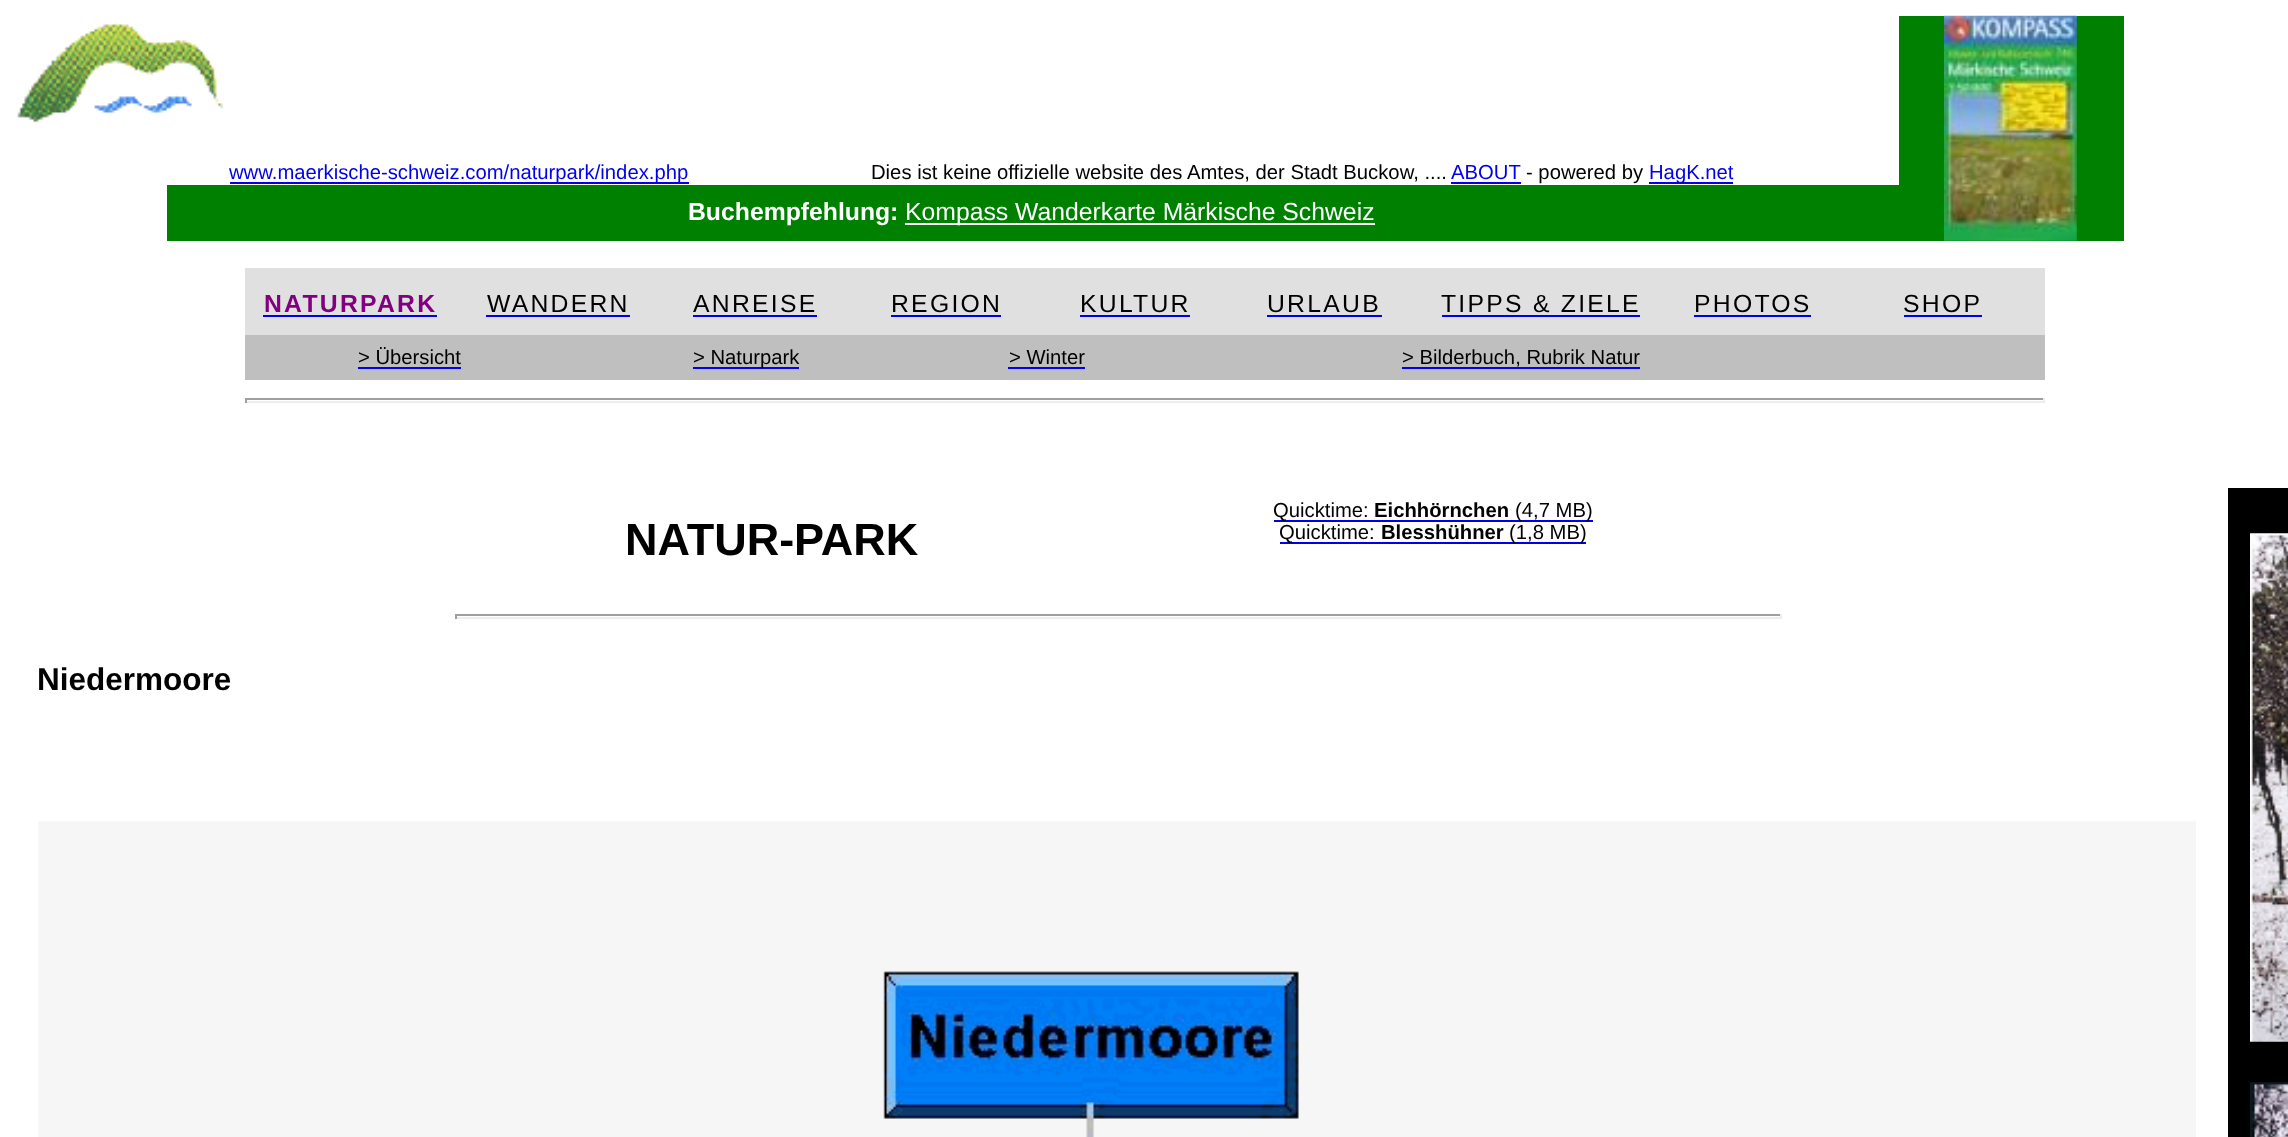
<svg xmlns="http://www.w3.org/2000/svg" width="2288" height="1137" viewBox="0 0 2288 1137">
  <rect width="100%" height="100%" fill="#ffffff"/>
  <image x="17" y="22" width="207" height="101" href="img1.png"/>
  <rect x="230" y="182" width="459" height="2" fill="#0000ee"/>
  <text x="229" y="179" font-family="Liberation Sans" font-size="20.25" fill="#0000ee">www.maerkische-schweiz.com/naturpark/index.php</text>
  <text x="871" y="179" font-family="Liberation Sans" font-size="20.25" fill="#000000">Dies ist keine offizielle website des Amtes, der Stadt Buckow, ....</text>
  <text x="1451" y="179" font-family="Liberation Sans" font-size="20.25" fill="#0000ee">ABOUT</text>
  <rect x="1451" y="182" width="70" height="2" fill="#0000ee"/>
  <text x="1526" y="179" font-family="Liberation Sans" font-size="20.25" fill="#000000">- powered by</text>
  <rect x="1649" y="182" width="84" height="2" fill="#0000ee"/>
  <text x="1649" y="179" font-family="Liberation Sans" font-size="20.25" fill="#0000ee">HagK.net</text>
  <rect x="1899" y="16" width="225" height="225" fill="#008000"/>
  <image x="1944" y="15" width="133" height="226" href="img2.png"/>
  <rect x="167" y="185" width="1732" height="56" fill="#008000"/>
  <text x="688" y="220" font-family="Liberation Sans" font-size="24.75" font-weight="bold" fill="#ffffff">Buchempfehlung:</text>
  <rect x="905" y="223" width="470" height="2" fill="#ffffff"/>
  <text x="905" y="220" font-family="Liberation Sans" font-size="24.75" fill="#ffffff">Kompass Wanderkarte Märkische Schweiz</text>
  <rect x="245" y="268" width="1800" height="67" fill="#e0e0e0"/>
  <text x="264" y="312" font-family="Liberation Sans" font-size="24.75" font-weight="bold" letter-spacing="2.25" fill="#800080">NATURPARK</text>
  <rect x="263" y="315" width="174" height="2" fill="#0000ee"/>
  <text x="487" y="312" font-family="Liberation Sans" font-size="24.75" letter-spacing="2.25" fill="#000000">WANDERN</text>
  <rect x="486" y="315" width="144" height="2" fill="#0000ee"/>
  <text x="693" y="312" font-family="Liberation Sans" font-size="24.75" letter-spacing="2.25" fill="#000000">ANREISE</text>
  <rect x="693" y="315" width="124" height="2" fill="#0000ee"/>
  <text x="891" y="312" font-family="Liberation Sans" font-size="24.75" letter-spacing="2.25" fill="#000000">REGION</text>
  <rect x="891" y="315" width="110" height="2" fill="#0000ee"/>
  <text x="1080" y="312" font-family="Liberation Sans" font-size="24.75" letter-spacing="2.25" fill="#000000">KULTUR</text>
  <rect x="1080" y="315" width="110" height="2" fill="#0000ee"/>
  <text x="1267" y="312" font-family="Liberation Sans" font-size="24.75" letter-spacing="2.25" fill="#000000">URLAUB</text>
  <rect x="1267" y="315" width="115" height="2" fill="#0000ee"/>
  <text x="1441" y="312" font-family="Liberation Sans" font-size="24.75" letter-spacing="2.25" fill="#000000">TIPPS &amp; ZIELE</text>
  <rect x="1442" y="315" width="198" height="2" fill="#0000ee"/>
  <text x="1694" y="312" font-family="Liberation Sans" font-size="24.75" letter-spacing="2.25" fill="#000000">PHOTOS</text>
  <rect x="1694" y="315" width="117" height="2" fill="#0000ee"/>
  <text x="1903" y="312" font-family="Liberation Sans" font-size="24.75" letter-spacing="2.25" fill="#000000">SHOP</text>
  <rect x="1904" y="315" width="78" height="2" fill="#0000ee"/>
  <rect x="245" y="335" width="1800" height="45" fill="#bfbfbf"/>
  <text x="358" y="364" font-family="Liberation Sans" font-size="20.25" fill="#000000">&gt; Übersicht</text>
  <rect x="358" y="367" width="103" height="2" fill="#0000ee"/>
  <rect x="693" y="367" width="106" height="2" fill="#0000ee"/>
  <text x="693" y="364" font-family="Liberation Sans" font-size="20.25" fill="#000000">&gt; Naturpark</text>
  <text x="1009" y="364" font-family="Liberation Sans" font-size="20.25" fill="#000000">&gt; Winter</text>
  <rect x="1008" y="367" width="77" height="2" fill="#0000ee"/>
  <text x="1402" y="364" font-family="Liberation Sans" font-size="20.25" fill="#000000">&gt; Bilderbuch, Rubrik Natur</text>
  <rect x="1402" y="367" width="238" height="2" fill="#0000ee"/>
  <rect x="245" y="398" width="1800" height="2" fill="#9f9f9f"/>
  <rect x="2043" y="398" width="2" height="5" fill="#eeeeee"/>
  <rect x="245" y="401" width="1800" height="2" fill="#eeeeee"/>
  <rect x="245" y="398" width="2" height="5" fill="#9f9f9f"/>
  <text x="625" y="555" font-family="Liberation Sans" font-size="45" font-weight="bold" fill="#000000">NATUR-PARK</text>
  <rect x="1274" y="520" width="319" height="2" fill="#0000ee"/>
  <text x="1273" y="517" font-family="Liberation Sans" font-size="20.25" fill="#000000">Quicktime:</text>
  <text x="1374" y="517" font-family="Liberation Sans" font-size="20.25" font-weight="bold" fill="#000000">Eichhörnchen</text>
  <text x="1515" y="517" font-family="Liberation Sans" font-size="20.25" fill="#000000">(4,7 MB)</text>
  <rect x="1280" y="542" width="306" height="2" fill="#0000ee"/>
  <text x="1279" y="539" font-family="Liberation Sans" font-size="20.25" fill="#000000">Quicktime:</text>
  <text x="1381" y="539" font-family="Liberation Sans" font-size="20.25" font-weight="bold" fill="#000000">Blesshühner</text>
  <text x="1509" y="539" font-family="Liberation Sans" font-size="20.25" fill="#000000">(1,8 MB)</text>
  <rect x="455" y="614" width="1327" height="2" fill="#9f9f9f"/>
  <rect x="1780" y="614" width="2" height="5" fill="#eeeeee"/>
  <rect x="455" y="617" width="1327" height="2" fill="#eeeeee"/>
  <rect x="455" y="614" width="2" height="5" fill="#9f9f9f"/>
  <text x="37" y="690" font-family="Liberation Sans" font-size="31.5" font-weight="bold" fill="#000000">Niedermoore</text>
  <image x="38" y="821" width="2158" height="316" href="img3.png"/>
  <rect x="2228" y="488" width="60" height="649" fill="#000000"/>
  <image x="2250" y="533" width="38" height="509" href="img4.png"/>
  <image x="2250" y="1082" width="38" height="55" href="img5.png"/>
</svg>
